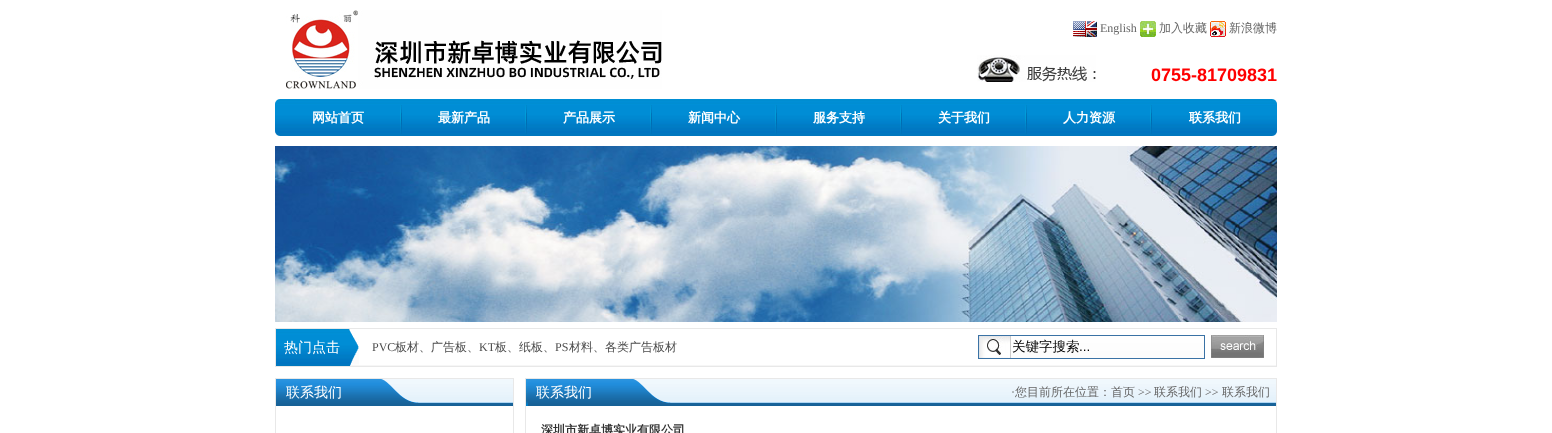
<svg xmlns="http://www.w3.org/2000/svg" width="1552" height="433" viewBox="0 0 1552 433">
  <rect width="100%" height="100%" fill="#ffffff"/>
  <image x="286" y="10" width="376" height="79" href="img1.png"/>
  <image x="1073" y="21" width="24" height="16" href="img2.png"/>
  <text x="1100" y="32" font-family="Liberation Serif" font-size="12" fill="#666666">English</text>
  <image x="1140" y="21" width="16" height="16" href="img3.png"/>
  <text x="1159" y="32" font-family="WenQuanYi Zen Hei" font-size="12" font-weight="500" fill="#666666">加入收藏</text>
  <image x="1210" y="21" width="16" height="16" href="img4.png"/>
  <text x="1229" y="32" font-family="WenQuanYi Zen Hei" font-size="12" font-weight="500" fill="#666666">新浪微博</text>
  <image x="977" y="55" width="119" height="27" href="img5.png"/>
  <text x="1151" y="81" font-family="Liberation Sans" font-size="18" font-weight="bold" fill="#ff0000">0755-81709831</text>
  <image x="275" y="99" width="1002" height="37" href="img6.png"/>
  <text x="312" y="122" font-family="WenQuanYi Zen Hei" font-size="13" font-weight="bold" fill="#ffffff">网站首页</text>
  <image x="400" y="105" width="2" height="29" href="img7.png"/>
  <text x="438" y="122" font-family="WenQuanYi Zen Hei" font-size="13" font-weight="bold" fill="#ffffff">最新产品</text>
  <image x="525" y="105" width="2" height="29" href="img7.png"/>
  <text x="563" y="122" font-family="WenQuanYi Zen Hei" font-size="13" font-weight="bold" fill="#ffffff">产品展示</text>
  <image x="650" y="105" width="2" height="29" href="img7.png"/>
  <text x="688" y="122" font-family="WenQuanYi Zen Hei" font-size="13" font-weight="bold" fill="#ffffff">新闻中心</text>
  <image x="775" y="105" width="2" height="29" href="img7.png"/>
  <text x="813" y="122" font-family="WenQuanYi Zen Hei" font-size="13" font-weight="bold" fill="#ffffff">服务支持</text>
  <image x="900" y="105" width="2" height="29" href="img7.png"/>
  <text x="938" y="122" font-family="WenQuanYi Zen Hei" font-size="13" font-weight="bold" fill="#ffffff">关于我们</text>
  <image x="1025" y="105" width="2" height="29" href="img7.png"/>
  <text x="1063" y="122" font-family="WenQuanYi Zen Hei" font-size="13" font-weight="bold" fill="#ffffff">人力资源</text>
  <image x="1150" y="105" width="2" height="29" href="img7.png"/>
  <text x="1189" y="122" font-family="WenQuanYi Zen Hei" font-size="13" font-weight="bold" fill="#ffffff">联系我们</text>
  <image x="275" y="146" width="1002" height="176" href="img8.png"/>
  <rect x="359" y="365" width="918" height="1" fill="#f6f6f6"/>
  <rect x="275.5" y="328.5" width="1001" height="38" fill="none" stroke="#e8e8e8"/>
  <image x="276" y="329" width="83" height="37" href="img9.png"/>
  <text x="284" y="352" font-family="WenQuanYi Zen Hei" font-size="14" font-weight="500" fill="#ffffff">热门点击</text>
  <text x="372" y="351" font-family="Liberation Serif" font-size="12" fill="#4d4d4d">PVC</text>
  <text x="395" y="351" font-family="WenQuanYi Zen Hei" font-size="12" font-weight="500" fill="#4d4d4d">板材、广告板、</text>
  <text x="479" y="351" font-family="Liberation Serif" font-size="12" fill="#4d4d4d">KT</text>
  <text x="495" y="351" font-family="WenQuanYi Zen Hei" font-size="12" font-weight="500" fill="#4d4d4d">板、纸板、</text>
  <text x="555" y="351" font-family="Liberation Serif" font-size="12" fill="#4d4d4d">PS</text>
  <text x="569" y="351" font-family="WenQuanYi Zen Hei" font-size="12" font-weight="500" fill="#4d4d4d">材料、各类广告板材</text>
  <image x="978" y="335" width="227" height="24" href="img10.png"/>
  <text x="1012" y="351" font-family="WenQuanYi Zen Hei" font-size="13.5" font-weight="500" fill="#000000">关键字搜索</text>
  <text x="1079" y="351" font-family="Liberation Sans" font-size="13.5" fill="#000000">...</text>
  <image x="1211" y="335" width="53" height="23" href="img11.png"/>
  <rect x="275.5" y="378.5" width="238" height="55" fill="none" stroke="#e8e8e8"/>
  <image x="276" y="379" width="237" height="27" href="img12.png"/>
  <text x="286" y="397" font-family="WenQuanYi Zen Hei" font-size="14" font-weight="500" fill="#ffffff">联系我们</text>
  <rect x="525.5" y="378.5" width="751" height="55" fill="none" stroke="#e8e8e8"/>
  <image x="526" y="379" width="750" height="27" href="img13.png"/>
  <text x="536" y="397" font-family="WenQuanYi Zen Hei" font-size="14" font-weight="500" fill="#ffffff">联系我们</text>
  <text x="1011" y="396" font-family="Liberation Serif" font-size="12" fill="#666666">·</text>
  <text x="1015" y="396" font-family="WenQuanYi Zen Hei" font-size="12" font-weight="500" fill="#666666">您目前所在位置：首页</text>
  <text x="1138" y="396" font-family="Liberation Serif" font-size="12" fill="#666666">&gt;&gt;</text>
  <text x="1154" y="396" font-family="WenQuanYi Zen Hei" font-size="12" font-weight="500" fill="#666666">联系我们</text>
  <text x="1205" y="396" font-family="Liberation Serif" font-size="12" fill="#666666">&gt;&gt;</text>
  <text x="1222" y="396" font-family="WenQuanYi Zen Hei" font-size="12" font-weight="500" fill="#666666">联系我们</text>
  <text x="541" y="434" font-family="WenQuanYi Zen Hei" font-size="12" font-weight="bold" fill="#333333">深圳市新卓博实业有限公司</text>
</svg>
